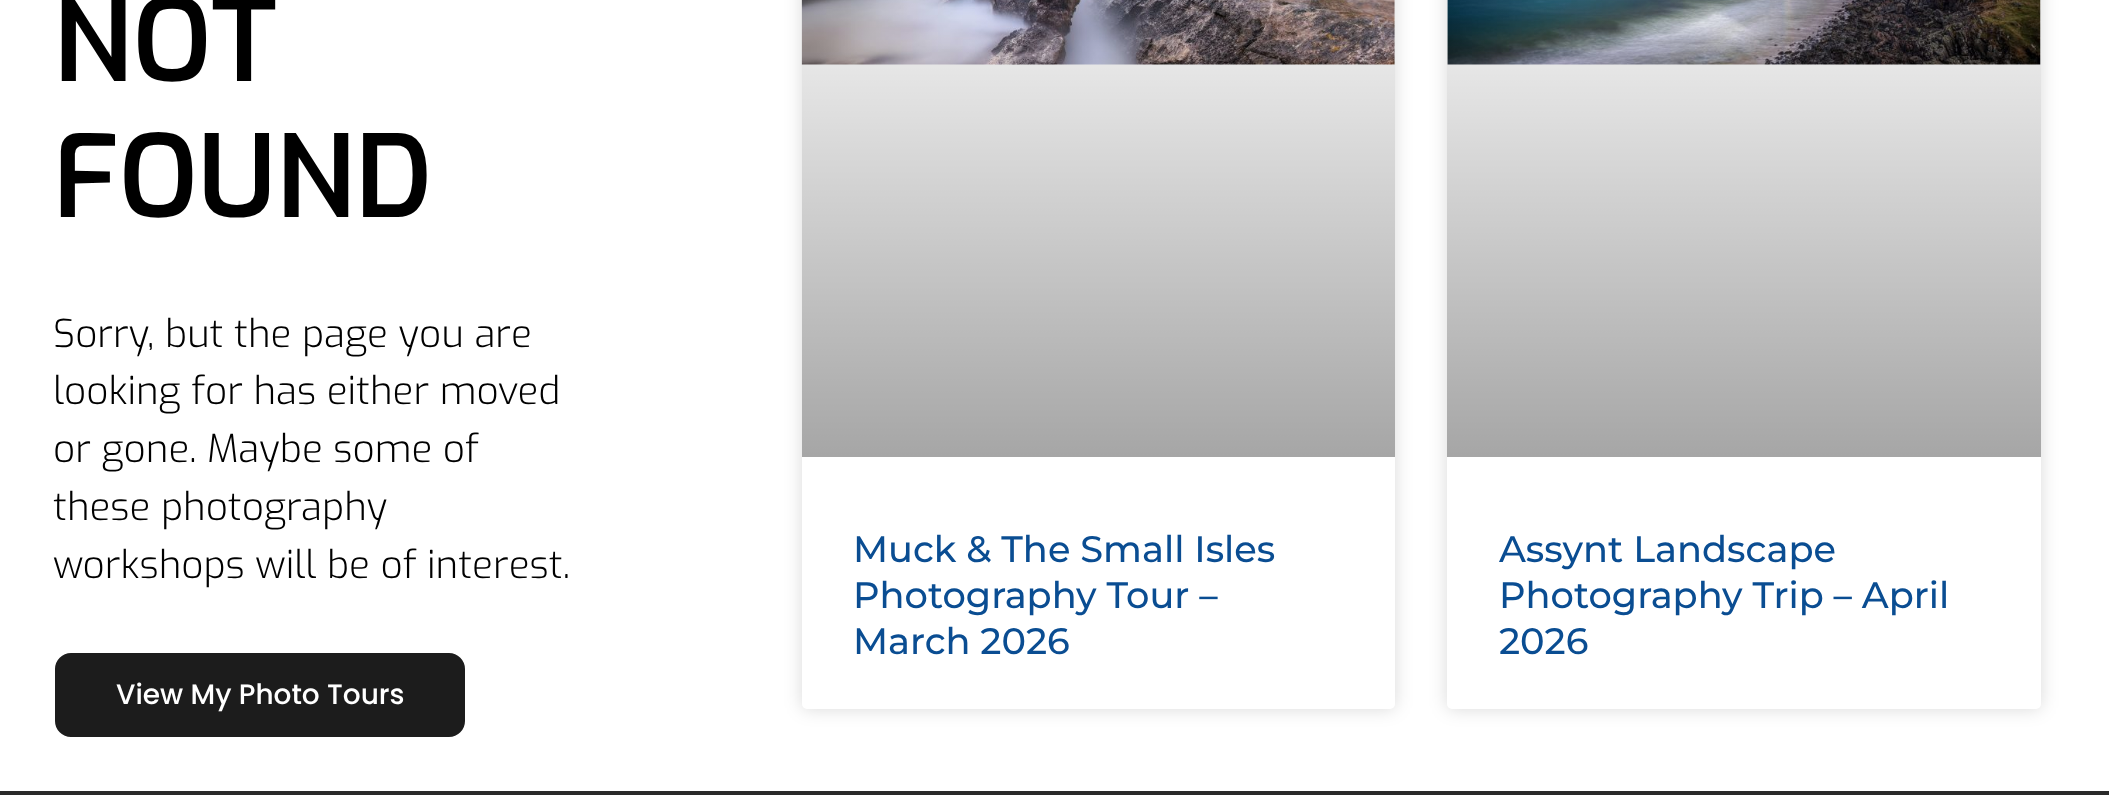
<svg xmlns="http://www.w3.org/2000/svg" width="2109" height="795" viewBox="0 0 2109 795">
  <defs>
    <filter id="blur1" x="-50%" y="-200%" width="200%" height="500%"><feGaussianBlur stdDeviation="9"/></filter>
    <linearGradient id="g1" gradientUnits="userSpaceOnUse" x1="1098" y1="457" x2="1098" y2="-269"><stop offset="0" stop-color="#000000" stop-opacity="0.35"/><stop offset="0.75" stop-color="#000000" stop-opacity="0"/></linearGradient>
    <linearGradient id="g2" gradientUnits="userSpaceOnUse" x1="1744" y1="457" x2="1744" y2="-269"><stop offset="0" stop-color="#000000" stop-opacity="0.35"/><stop offset="0.75" stop-color="#000000" stop-opacity="0"/></linearGradient>
  </defs>
  <rect width="100%" height="100%" fill="#ffffff"/>
  <text x="53" y="81" font-family="Exo" font-size="114" font-weight="600" fill="#000000">NOT</text>
  <text x="53" y="217" font-family="Exo" font-size="114" font-weight="600" fill="#000000">FOUND</text>
  <text x="53" y="347" font-family="Exo" font-size="38.5" font-weight="300" fill="#000000">Sorry, but the page you are</text>
  <text x="53" y="404" font-family="Exo" font-size="38.5" font-weight="300" fill="#000000">looking for has either moved</text>
  <text x="53" y="462" font-family="Exo" font-size="38.5" font-weight="300" fill="#000000">or gone. Maybe some of</text>
  <text x="53" y="520" font-family="Exo" font-size="38.5" font-weight="300" fill="#000000">these photography</text>
  <text x="53" y="578" font-family="Exo" font-size="38.5" font-weight="300" fill="#000000">workshops will be of interest.</text>
  <rect x="54" y="652" width="412" height="86" rx="17" fill="#1c1c1c" stroke="#ffffff" stroke-width="2"/>
  <text x="116" y="704" font-family="Poppins" font-size="28" font-weight="500" fill="#ffffff">View My Photo Tours</text>
  <rect x="802" y="-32" width="593" height="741" rx="5" fill="#000000" fill-opacity="0.15" filter="url(#blur1)"/>
  <rect x="802" y="-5" width="593" height="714" rx="5" fill="#ffffff"/>
  <image x="801" y="0" width="594" height="65" href="img1.png"/>
  <rect x="802" y="0" width="593" height="457" fill="url(#g1)"/>
  <text x="853" y="562" font-family="Montserrat" font-size="36.75" font-weight="500" fill="#0a4d92">Muck &amp; The Small Isles</text>
  <text x="853" y="608" font-family="Montserrat" font-size="36.75" font-weight="500" fill="#0a4d92">Photography Tour –</text>
  <text x="853" y="654" font-family="Montserrat" font-size="36.75" font-weight="500" fill="#0a4d92">March 2026</text>
  <rect x="1447" y="-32" width="594" height="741" rx="5" fill="#000000" fill-opacity="0.15" filter="url(#blur1)"/>
  <rect x="1447" y="-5" width="594" height="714" rx="5" fill="#ffffff"/>
  <image x="1447" y="0" width="594" height="65" href="img2.png"/>
  <rect x="1447" y="0" width="594" height="457" fill="url(#g2)"/>
  <text x="1499" y="562" font-family="Montserrat" font-size="36.75" font-weight="500" fill="#0a4d92">Assynt Landscape</text>
  <text x="1499" y="608" font-family="Montserrat" font-size="36.75" font-weight="500" fill="#0a4d92">Photography Trip – April</text>
  <text x="1499" y="654" font-family="Montserrat" font-size="36.75" font-weight="500" fill="#0a4d92">2026</text>
  <rect x="0" y="791" width="2109" height="4" fill="#2a2a2a"/>
</svg>
